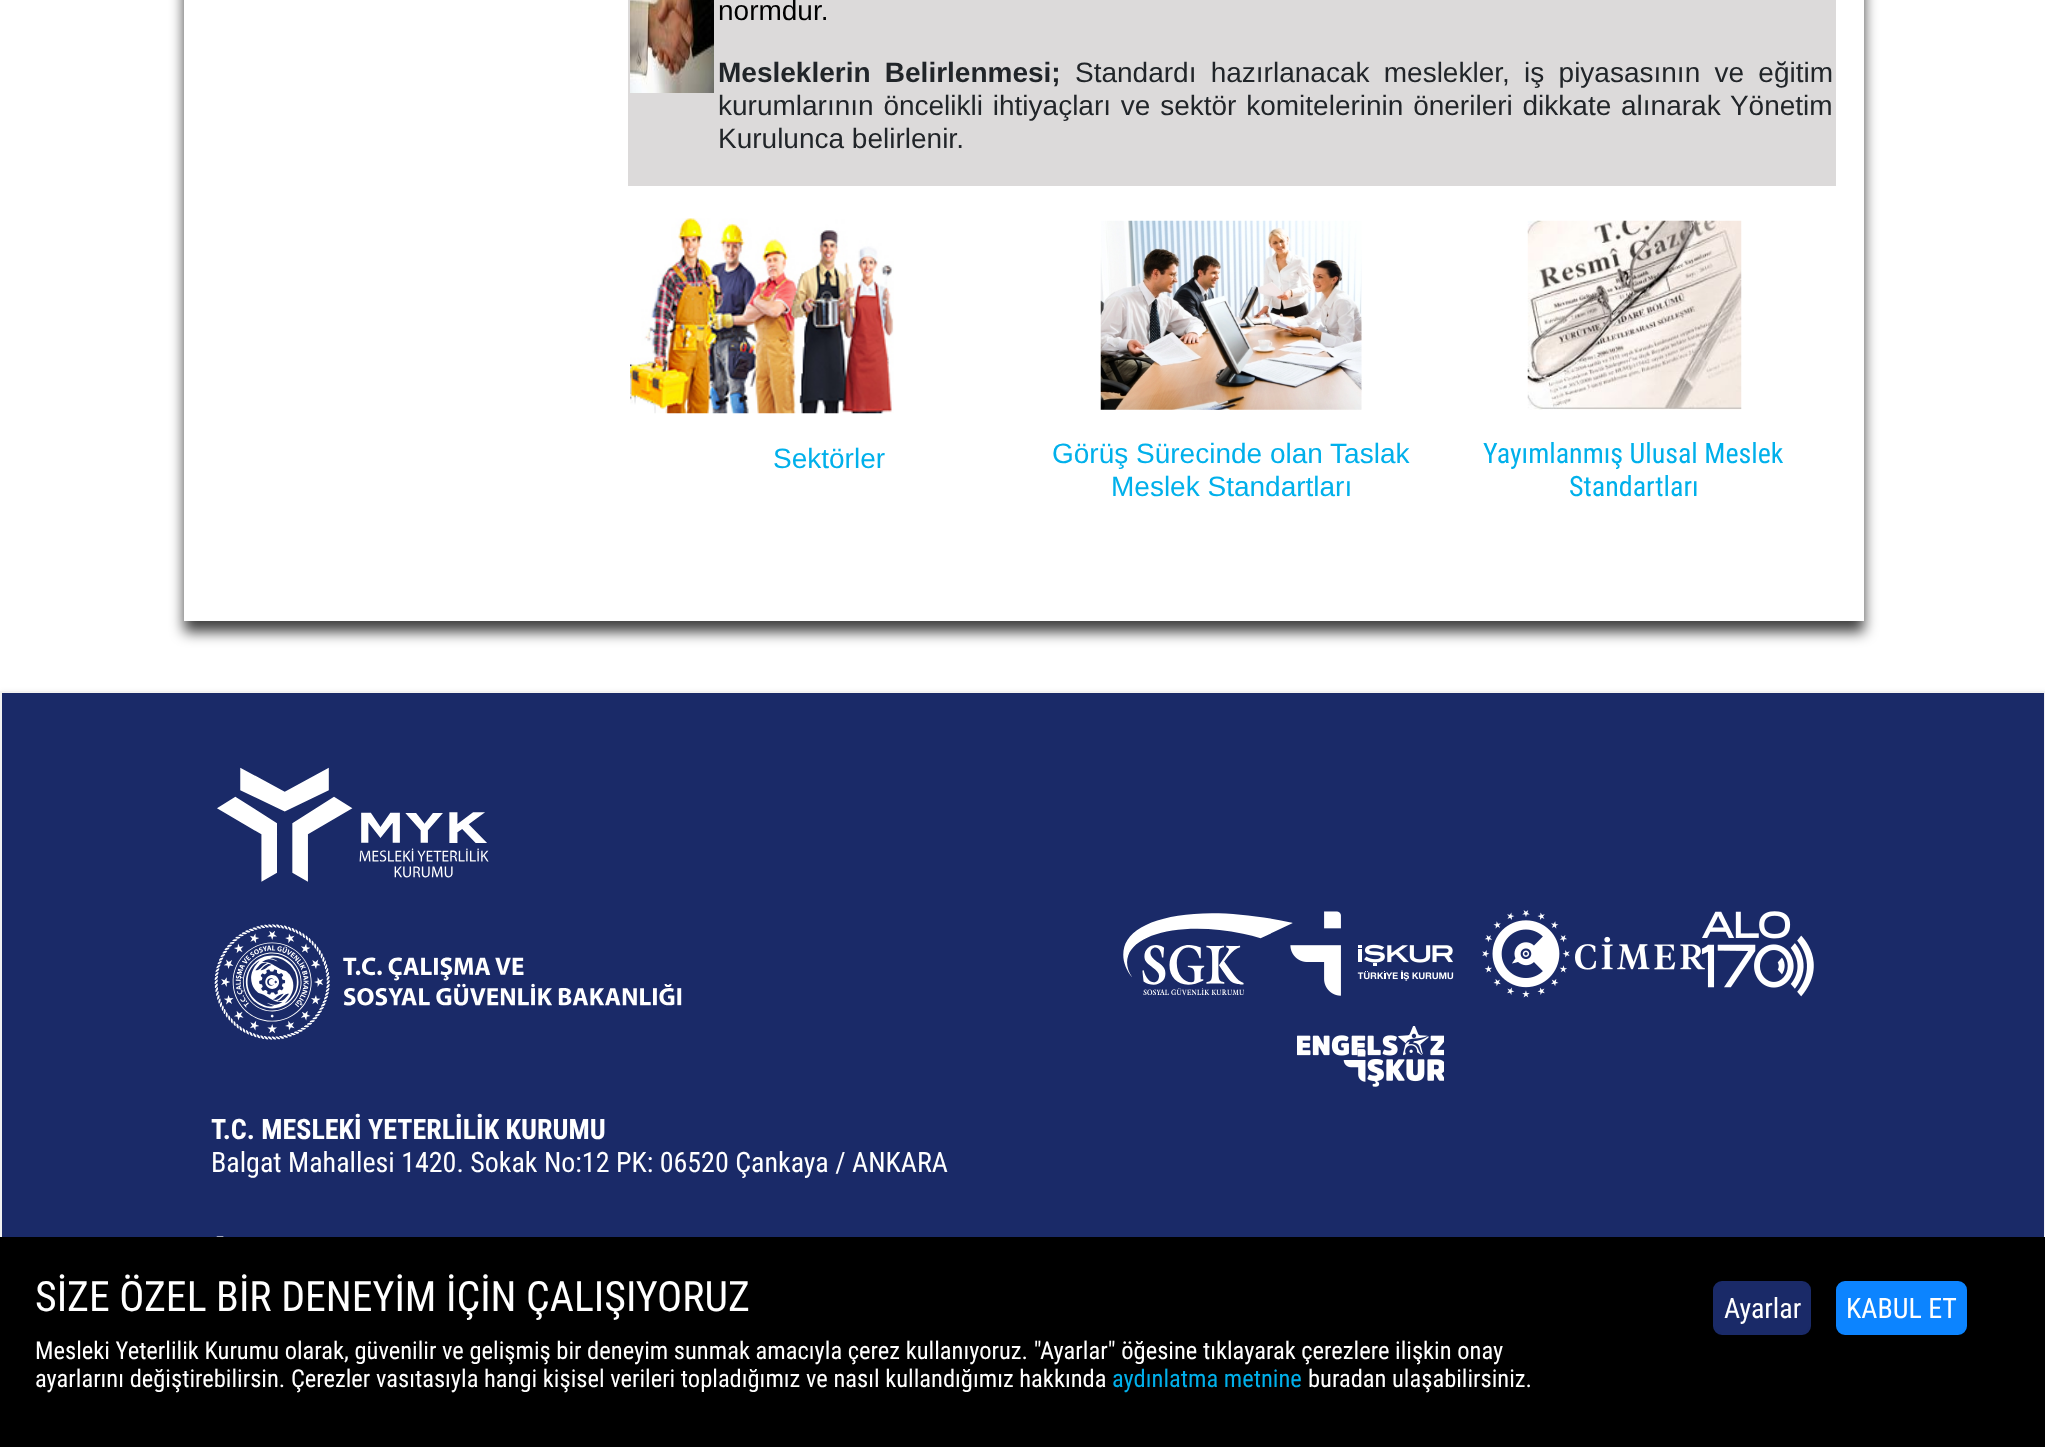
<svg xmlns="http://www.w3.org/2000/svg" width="2045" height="1447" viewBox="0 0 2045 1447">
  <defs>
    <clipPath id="clip1"><path d="M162 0H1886V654H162ZM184-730H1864V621H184Z" clip-rule="evenodd"/></clipPath>
    <filter id="blur1" x="-50%" y="-200%" width="200%" height="500%"><feGaussianBlur stdDeviation="7"/></filter>
    <filter id="blur2" x="-50%" y="-200%" width="200%" height="500%"><feGaussianBlur stdDeviation="2"/></filter>
  </defs>
  <rect width="100%" height="100%" fill="#ffffff"/>
  <g clip-path="url(#clip1)">
    <rect x="184" y="-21" width="1680" height="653" fill="#000000" fill-opacity="0.75" filter="url(#blur1)"/>
  </g>
  <rect x="628" y="0" width="1208" height="186" fill="#dcdada"/>
  <image x="630" y="0" width="84" height="93" href="img1.png"/>
  <text x="718" y="20" font-family="Liberation Sans" font-size="28" fill="#000000">normdur.</text>
  <text x="718" y="82" word-spacing="6.5" font-family="Liberation Sans" font-size="28" font-weight="bold" fill="#212529">Mesleklerin Belirlenmesi;</text>
  <text x="1075" y="82" word-spacing="6.5" font-family="Liberation Sans" font-size="28" fill="#212529">Standardı hazırlanacak meslekler, iş piyasasının ve eğitim</text>
  <text x="718" y="115" word-spacing="2" font-family="Liberation Sans" font-size="28" fill="#212529">kurumlarının öncelikli ihtiyaçları ve sektör komitelerinin önerileri dikkate alınarak Yönetim</text>
  <text x="718" y="148" font-family="Liberation Sans" font-size="28" fill="#212529">Kurulunca belirlenir.</text>
  <image x="630" y="218" width="264" height="196" href="img2.png"/>
  <text x="773" y="468" font-family="Liberation Sans" font-size="28" fill="#00b0eb">Sektörler</text>
  <image x="1100" y="220" width="262" height="190" href="img3.png"/>
  <text x="1052" y="463" font-family="Liberation Sans" font-size="28" fill="#00b0eb">Görüş Sürecinde olan Taslak</text>
  <text x="1111" y="496" font-family="Liberation Sans" font-size="28" fill="#00b0eb">Meslek Standartları</text>
  <image x="1527" y="220" width="215" height="190" href="img4.png"/>
  <text x="1483" y="463" font-family="Roboto Condensed" font-size="28" fill="#00b0eb">Yayımlanmış Ulusal Meslek</text>
  <text x="1569" y="496" font-family="Roboto Condensed" font-size="28" fill="#00b0eb">Standartları</text>
  <rect x="0" y="691" width="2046" height="756" fill="#000000" fill-opacity="0.06" filter="url(#blur2)"/>
  <rect x="2" y="693" width="2042" height="544" fill="#1a2a68"/>
  <rect x="1" y="692" width="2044" height="754" fill="none" stroke="#f2f2f2" stroke-width="2"/>
  <image x="1123" y="913" width="170" height="83" href="img5.png"/>
  <image x="1290" y="911" width="164" height="85" href="img6.png"/>
  <image x="1482" y="910" width="223" height="88" href="img7.png"/>
  <image x="1701" y="911" width="113" height="86" href="img8.png"/>
  <image x="1297" y="1026" width="147" height="61" href="img9.png"/>
  <image x="217" y="767" width="272" height="115" href="img10.png"/>
  <image x="214" y="924" width="468" height="116" href="img11.png"/>
  <text x="211" y="1139" font-family="Roboto Condensed" font-size="28" font-weight="bold" fill="#ffffff">T.C. MESLEKİ YETERLİLİK KURUMU</text>
  <text x="211" y="1172" font-family="Roboto Condensed" font-size="28" fill="#ffffff">Balgat Mahallesi 1420. Sokak No:12 PK: 06520 Çankaya / ANKARA</text>
  <image x="216" y="1236" width="8" height="1" href="img12.png"/>
  <rect x="0" y="1237" width="2045" height="210" fill="#000000"/>
  <text x="35" y="1311" font-family="Roboto Condensed" font-size="41.8" fill="#ffffff">SİZE ÖZEL BİR DENEYİM İÇİN ÇALIŞIYORUZ</text>
  <text x="35" y="1359" font-family="Roboto Condensed" font-size="24.5" fill="#ffffff">Mesleki Yeterlilik Kurumu olarak, güvenilir ve gelişmiş bir deneyim sunmak amacıyla çerez kullanıyoruz. "Ayarlar" öğesine tıklayarak çerezlere ilişkin onay</text>
  <text x="35" y="1387" font-family="Roboto Condensed" font-size="24.5" fill="#ffffff">ayarlarını değiştirebilirsin. Çerezler vasıtasıyla hangi kişisel verileri topladığımız ve nasıl kullandığımız hakkında</text>
  <text x="1112" y="1387" font-family="Roboto Condensed" font-size="24.5" fill="#00b0eb">aydınlatma metnine</text>
  <text x="1308" y="1387" font-family="Roboto Condensed" font-size="24.5" fill="#ffffff">buradan ulaşabilirsiniz.</text>
  <rect x="1714" y="1282" width="96" height="52" rx="8" fill="#1a2a68" stroke="#1a2a68" stroke-width="2"/>
  <text x="1724" y="1318" font-family="Roboto Condensed" font-size="28" fill="#ffffff">Ayarlar</text>
  <rect x="1837" y="1282" width="129" height="52" rx="8" fill="#0c84ff" stroke="#0c84ff" stroke-width="2"/>
  <text x="1846" y="1318" font-family="Roboto Condensed" font-size="28" fill="#ffffff">KABUL ET</text>
</svg>
